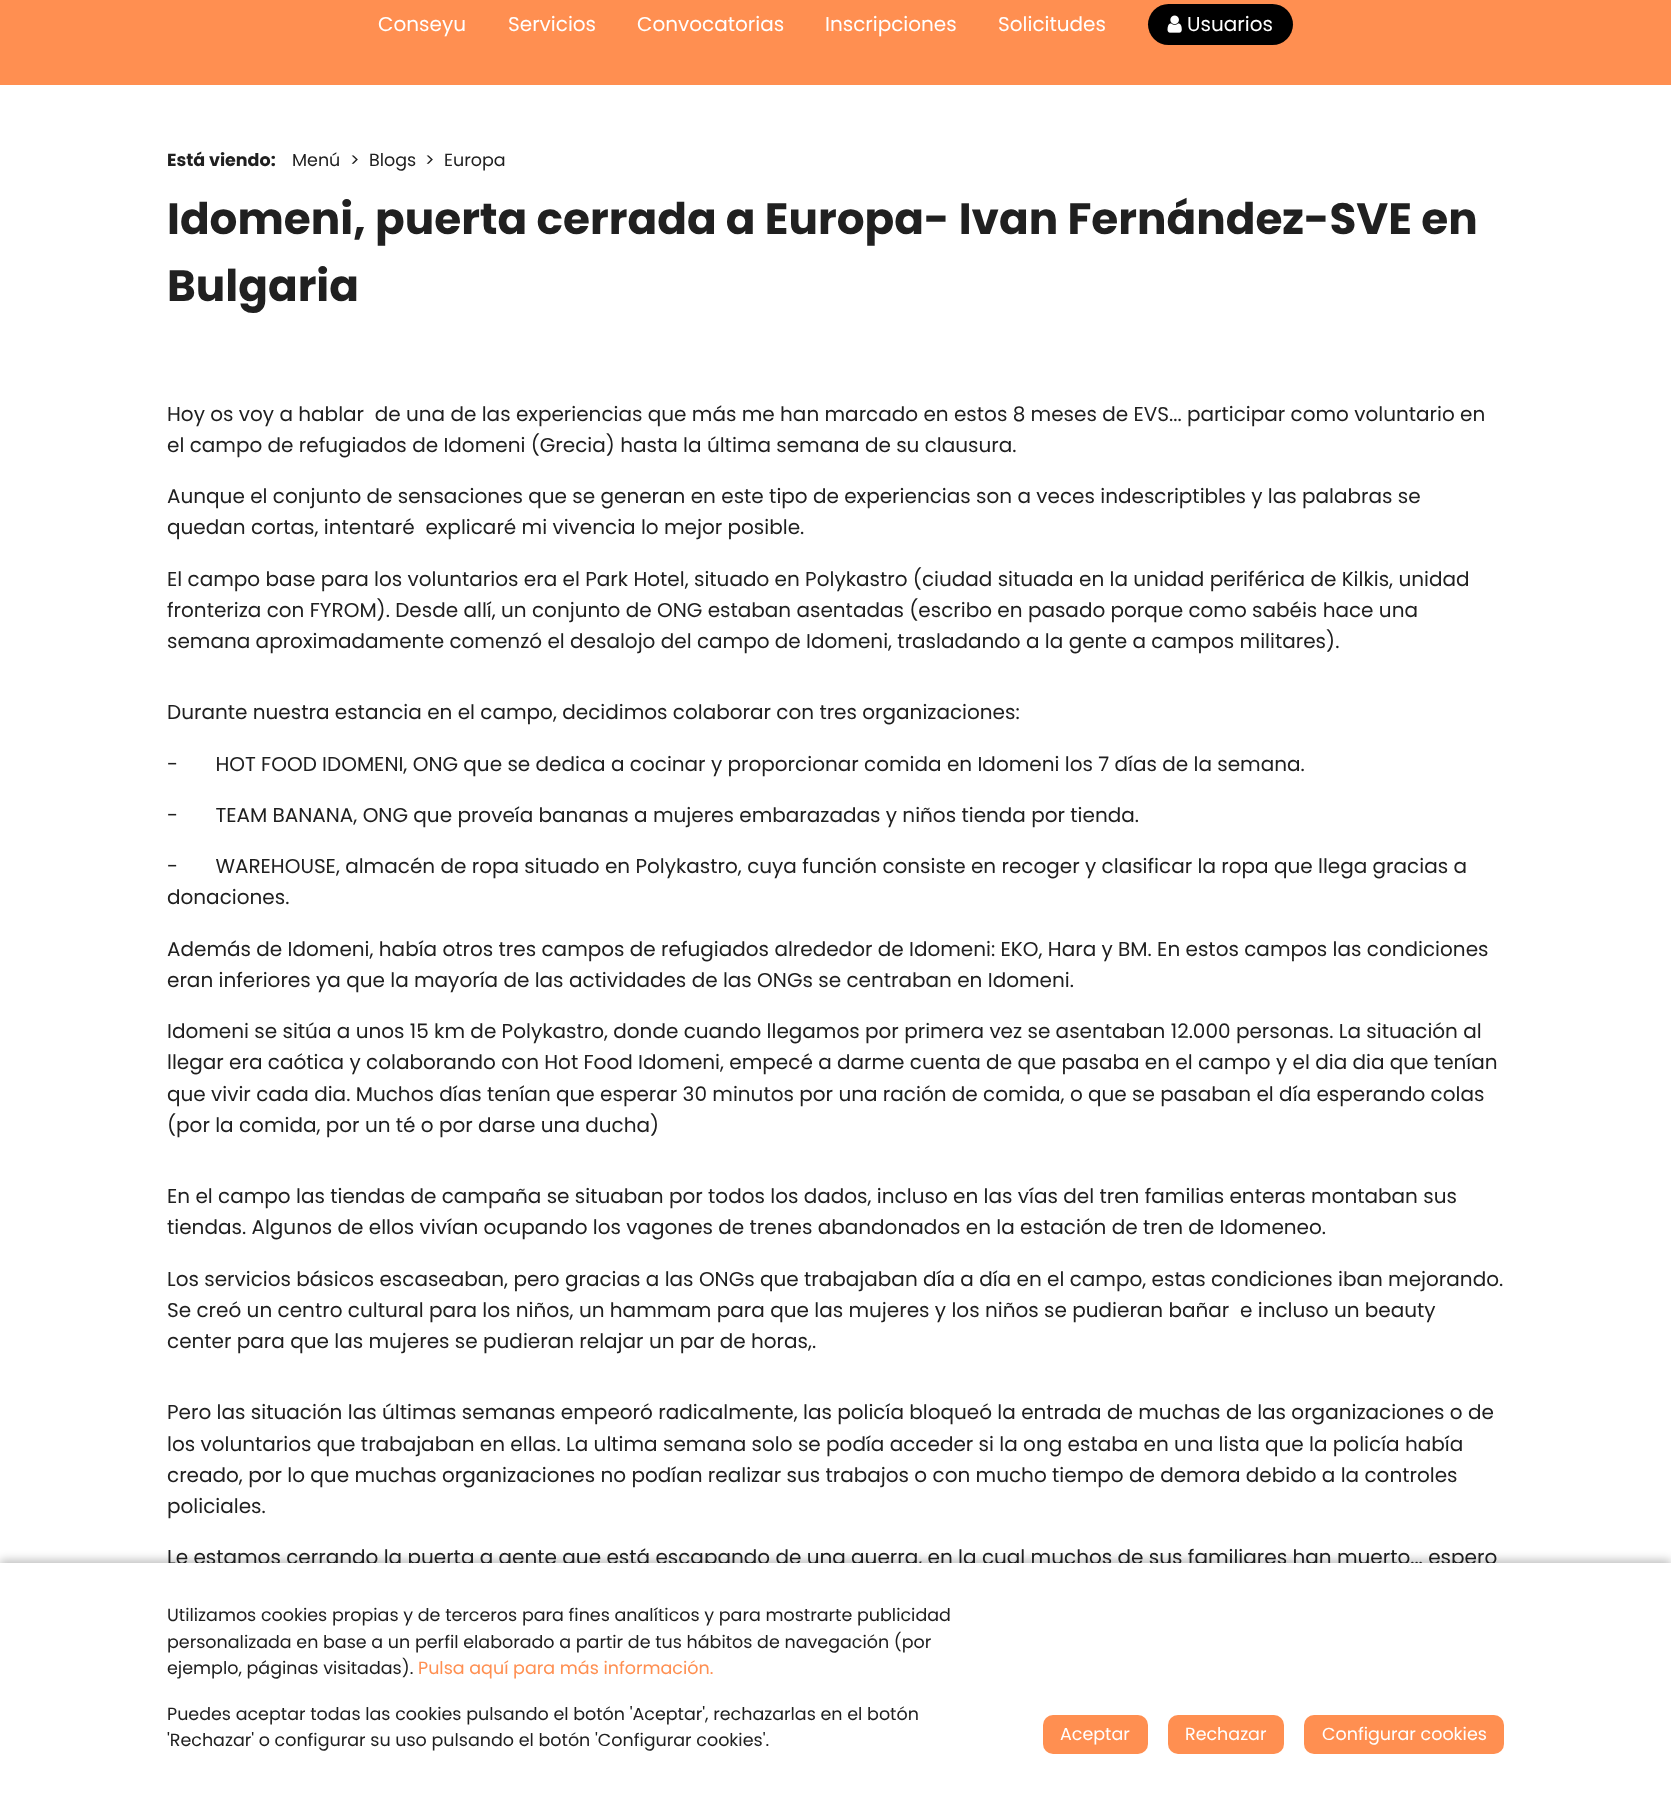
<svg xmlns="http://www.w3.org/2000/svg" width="1671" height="1793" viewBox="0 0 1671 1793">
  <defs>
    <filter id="blur1" x="-50%" y="-200%" width="200%" height="500%"><feGaussianBlur stdDeviation="5"/></filter>
  </defs>
  <rect width="100%" height="100%" fill="#ffffff"/>
  <rect x="0" y="0" width="1671" height="85" fill="#ff8f51"/>
  <text x="378" y="31" font-family="Poppins" font-size="20" fill="#ffffff">Conseyu</text>
  <text x="508" y="31" font-family="Poppins" font-size="20" fill="#ffffff">Servicios</text>
  <text x="637" y="31" font-family="Poppins" font-size="20" fill="#ffffff">Convocatorias</text>
  <text x="825" y="31" font-family="Poppins" font-size="20" fill="#ffffff">Inscripciones</text>
  <text x="998" y="31" font-family="Poppins" font-size="20" fill="#ffffff">Solicitudes</text>
  <rect x="1148" y="4" width="145" height="41" rx="20.5" fill="#000000"/>
  <image x="1167" y="15" width="15" height="18" href="img1.png"/>
  <text x="1187" y="31" font-family="Poppins" font-size="20" fill="#ffffff">Usuarios</text>
  <text x="167" y="166" font-family="Poppins" font-size="17.5" font-weight="bold" fill="#202020">Está viendo:</text>
  <text x="292" y="166" font-family="Poppins" font-size="17.5" fill="#202020">Menú</text>
  <text x="350" y="166" font-family="Poppins" font-size="17.5" fill="#202020">&gt;</text>
  <text x="369" y="166" font-family="Poppins" font-size="17.5" fill="#202020">Blogs</text>
  <text x="425" y="166" font-family="Poppins" font-size="17.5" fill="#202020">&gt;</text>
  <text x="444" y="166" font-family="Poppins" font-size="17.5" fill="#202020">Europa</text>
  <text x="167" y="234" font-family="Poppins" font-size="43.75" font-weight="bold" fill="#202020">Idomeni, puerta cerrada a Europa- Ivan Fernández-SVE en</text>
  <text x="167" y="301" font-family="Poppins" font-size="43.75" font-weight="bold" fill="#202020">Bulgaria</text>
  <text x="167" y="421" font-family="Poppins" font-size="20" fill="#202020" xml:space="preserve">Hoy os voy a hablar  de una de las experiencias que más me han marcado en estos 8 meses de EVS... participar como voluntario en</text>
  <text x="167" y="452" font-family="Poppins" font-size="20" fill="#202020">el campo de refugiados de Idomeni (Grecia) hasta la última semana de su clausura.</text>
  <text x="167" y="503" font-family="Poppins" font-size="20" fill="#202020">Aunque el conjunto de sensaciones que se generan en este tipo de experiencias son a veces indescriptibles y las palabras se</text>
  <text x="167" y="534" font-family="Poppins" font-size="20" fill="#202020" xml:space="preserve">quedan cortas, intentaré  explicaré mi vivencia lo mejor posible.</text>
  <text x="167" y="586" font-family="Poppins" font-size="20" fill="#202020">El campo base para los voluntarios era el Park Hotel, situado en Polykastro (ciudad situada en la unidad periférica de Kilkis, unidad</text>
  <text x="167" y="617" font-family="Poppins" font-size="20" fill="#202020">fronteriza con FYROM). Desde allí, un conjunto de ONG estaban asentadas (escribo en pasado porque como sabéis hace una</text>
  <text x="167" y="648" font-family="Poppins" font-size="20" fill="#202020">semana aproximadamente comenzó el desalojo del campo de Idomeni, trasladando a la gente a campos militares).</text>
  <text x="167" y="719" font-family="Poppins" font-size="20" fill="#202020">Durante nuestra estancia en el campo, decidimos colaborar con tres organizaciones:</text>
  <text x="167" y="771" font-family="Poppins" font-size="20" fill="#202020" xml:space="preserve">-       HOT FOOD IDOMENI, ONG que se dedica a cocinar y proporcionar comida en Idomeni los 7 días de la semana.</text>
  <text x="167" y="822" font-family="Poppins" font-size="20" fill="#202020" xml:space="preserve">-       TEAM BANANA, ONG que proveía bananas a mujeres embarazadas y niños tienda por tienda.</text>
  <text x="167" y="873" font-family="Poppins" font-size="20" fill="#202020" xml:space="preserve">-       WAREHOUSE, almacén de ropa situado en Polykastro, cuya función consiste en recoger y clasificar la ropa que llega gracias a</text>
  <text x="167" y="904" font-family="Poppins" font-size="20" fill="#202020">donaciones.</text>
  <text x="167" y="956" font-family="Poppins" font-size="20" fill="#202020">Además de Idomeni, había otros tres campos de refugiados alrededor de Idomeni: EKO, Hara y BM. En estos campos las condiciones</text>
  <text x="167" y="987" font-family="Poppins" font-size="20" fill="#202020">eran inferiores ya que la mayoría de las actividades de las ONGs se centraban en Idomeni.</text>
  <text x="167" y="1038" font-family="Poppins" font-size="20" fill="#202020">Idomeni se sitúa a unos 15 km de Polykastro, donde cuando llegamos por primera vez se asentaban 12.000 personas. La situación al</text>
  <text x="167" y="1069" font-family="Poppins" font-size="20" fill="#202020">llegar era caótica y colaborando con Hot Food Idomeni, empecé a darme cuenta de que pasaba en el campo y el dia dia que tenían</text>
  <text x="167" y="1101" font-family="Poppins" font-size="20" fill="#202020">que vivir cada dia. Muchos días tenían que esperar 30 minutos por una ración de comida, o que se pasaban el día esperando colas</text>
  <text x="167" y="1132" font-family="Poppins" font-size="20" fill="#202020">(por la comida, por un té o por darse una ducha)</text>
  <text x="167" y="1203" font-family="Poppins" font-size="20" fill="#202020">En el campo las tiendas de campaña se situaban por todos los dados, incluso en las vías del tren familias enteras montaban sus</text>
  <text x="167" y="1234" font-family="Poppins" font-size="20" fill="#202020">tiendas. Algunos de ellos vivían ocupando los vagones de trenes abandonados en la estación de tren de Idomeneo.</text>
  <text x="167" y="1286" font-family="Poppins" font-size="20" fill="#202020">Los servicios básicos escaseaban, pero gracias a las ONGs que trabajaban día a día en el campo, estas condiciones iban mejorando.</text>
  <text x="167" y="1317" font-family="Poppins" font-size="20" fill="#202020" xml:space="preserve">Se creó un centro cultural para los niños, un hammam para que las mujeres y los niños se pudieran bañar  e incluso un beauty</text>
  <text x="167" y="1348" font-family="Poppins" font-size="20" fill="#202020">center para que las mujeres se pudieran relajar un par de horas,.</text>
  <text x="167" y="1419" font-family="Poppins" font-size="20" fill="#202020">Pero las situación las últimas semanas empeoró radicalmente, las policía bloqueó la entrada de muchas de las organizaciones o de</text>
  <text x="167" y="1451" font-family="Poppins" font-size="20" fill="#202020">los voluntarios que trabajaban en ellas. La ultima semana solo se podía acceder si la ong estaba en una lista que la policía había</text>
  <text x="167" y="1482" font-family="Poppins" font-size="20" fill="#202020">creado, por lo que muchas organizaciones no podían realizar sus trabajos o con mucho tiempo de demora debido a la controles</text>
  <text x="167" y="1513" font-family="Poppins" font-size="20" fill="#202020">policiales.</text>
  <text x="167" y="1564" font-family="Poppins" font-size="20" fill="#202020">Le estamos cerrando la puerta a gente que está escapando de una guerra, en la cual muchos de sus familiares han muerto... espero</text>
  <rect x="0" y="1560" width="1671" height="231" fill="#000000" fill-opacity="0.25" filter="url(#blur1)"/>
  <rect x="0" y="1563" width="1671" height="230" fill="#ffffff"/>
  <text x="167" y="1621" font-family="Poppins" font-size="17.5" fill="#202020">Utilizamos cookies propias y de terceros para fines analíticos y para mostrarte publicidad</text>
  <text x="167" y="1648" font-family="Poppins" font-size="17.5" fill="#202020">personalizada en base a un perfil elaborado a partir de tus hábitos de navegación (por</text>
  <text x="167" y="1674" font-family="Poppins" font-size="17.5" fill="#202020">ejemplo, páginas visitadas).</text>
  <text x="418" y="1674" font-family="Poppins" font-size="17.5" fill="#ff8f51">Pulsa aquí para más información.</text>
  <text x="167" y="1720" font-family="Poppins" font-size="17.5" fill="#202020">Puedes aceptar todas las cookies pulsando el botón 'Aceptar', rechazarlas en el botón</text>
  <text x="167" y="1746" font-family="Poppins" font-size="17.5" fill="#202020">'Rechazar' o configurar su uso pulsando el botón 'Configurar cookies'.</text>
  <rect x="1043" y="1715" width="105" height="39" rx="10" fill="#ff8f51"/>
  <text x="1060" y="1740" font-family="Poppins" font-size="17.5" fill="#ffffff">Aceptar</text>
  <rect x="1168" y="1715" width="116" height="39" rx="10" fill="#ff8f51"/>
  <text x="1185" y="1740" font-family="Poppins" font-size="17.5" fill="#ffffff">Rechazar</text>
  <rect x="1304" y="1715" width="200" height="39" rx="10" fill="#ff8f51"/>
  <text x="1322" y="1740" font-family="Poppins" font-size="17.5" fill="#ffffff">Configurar cookies</text>
</svg>
